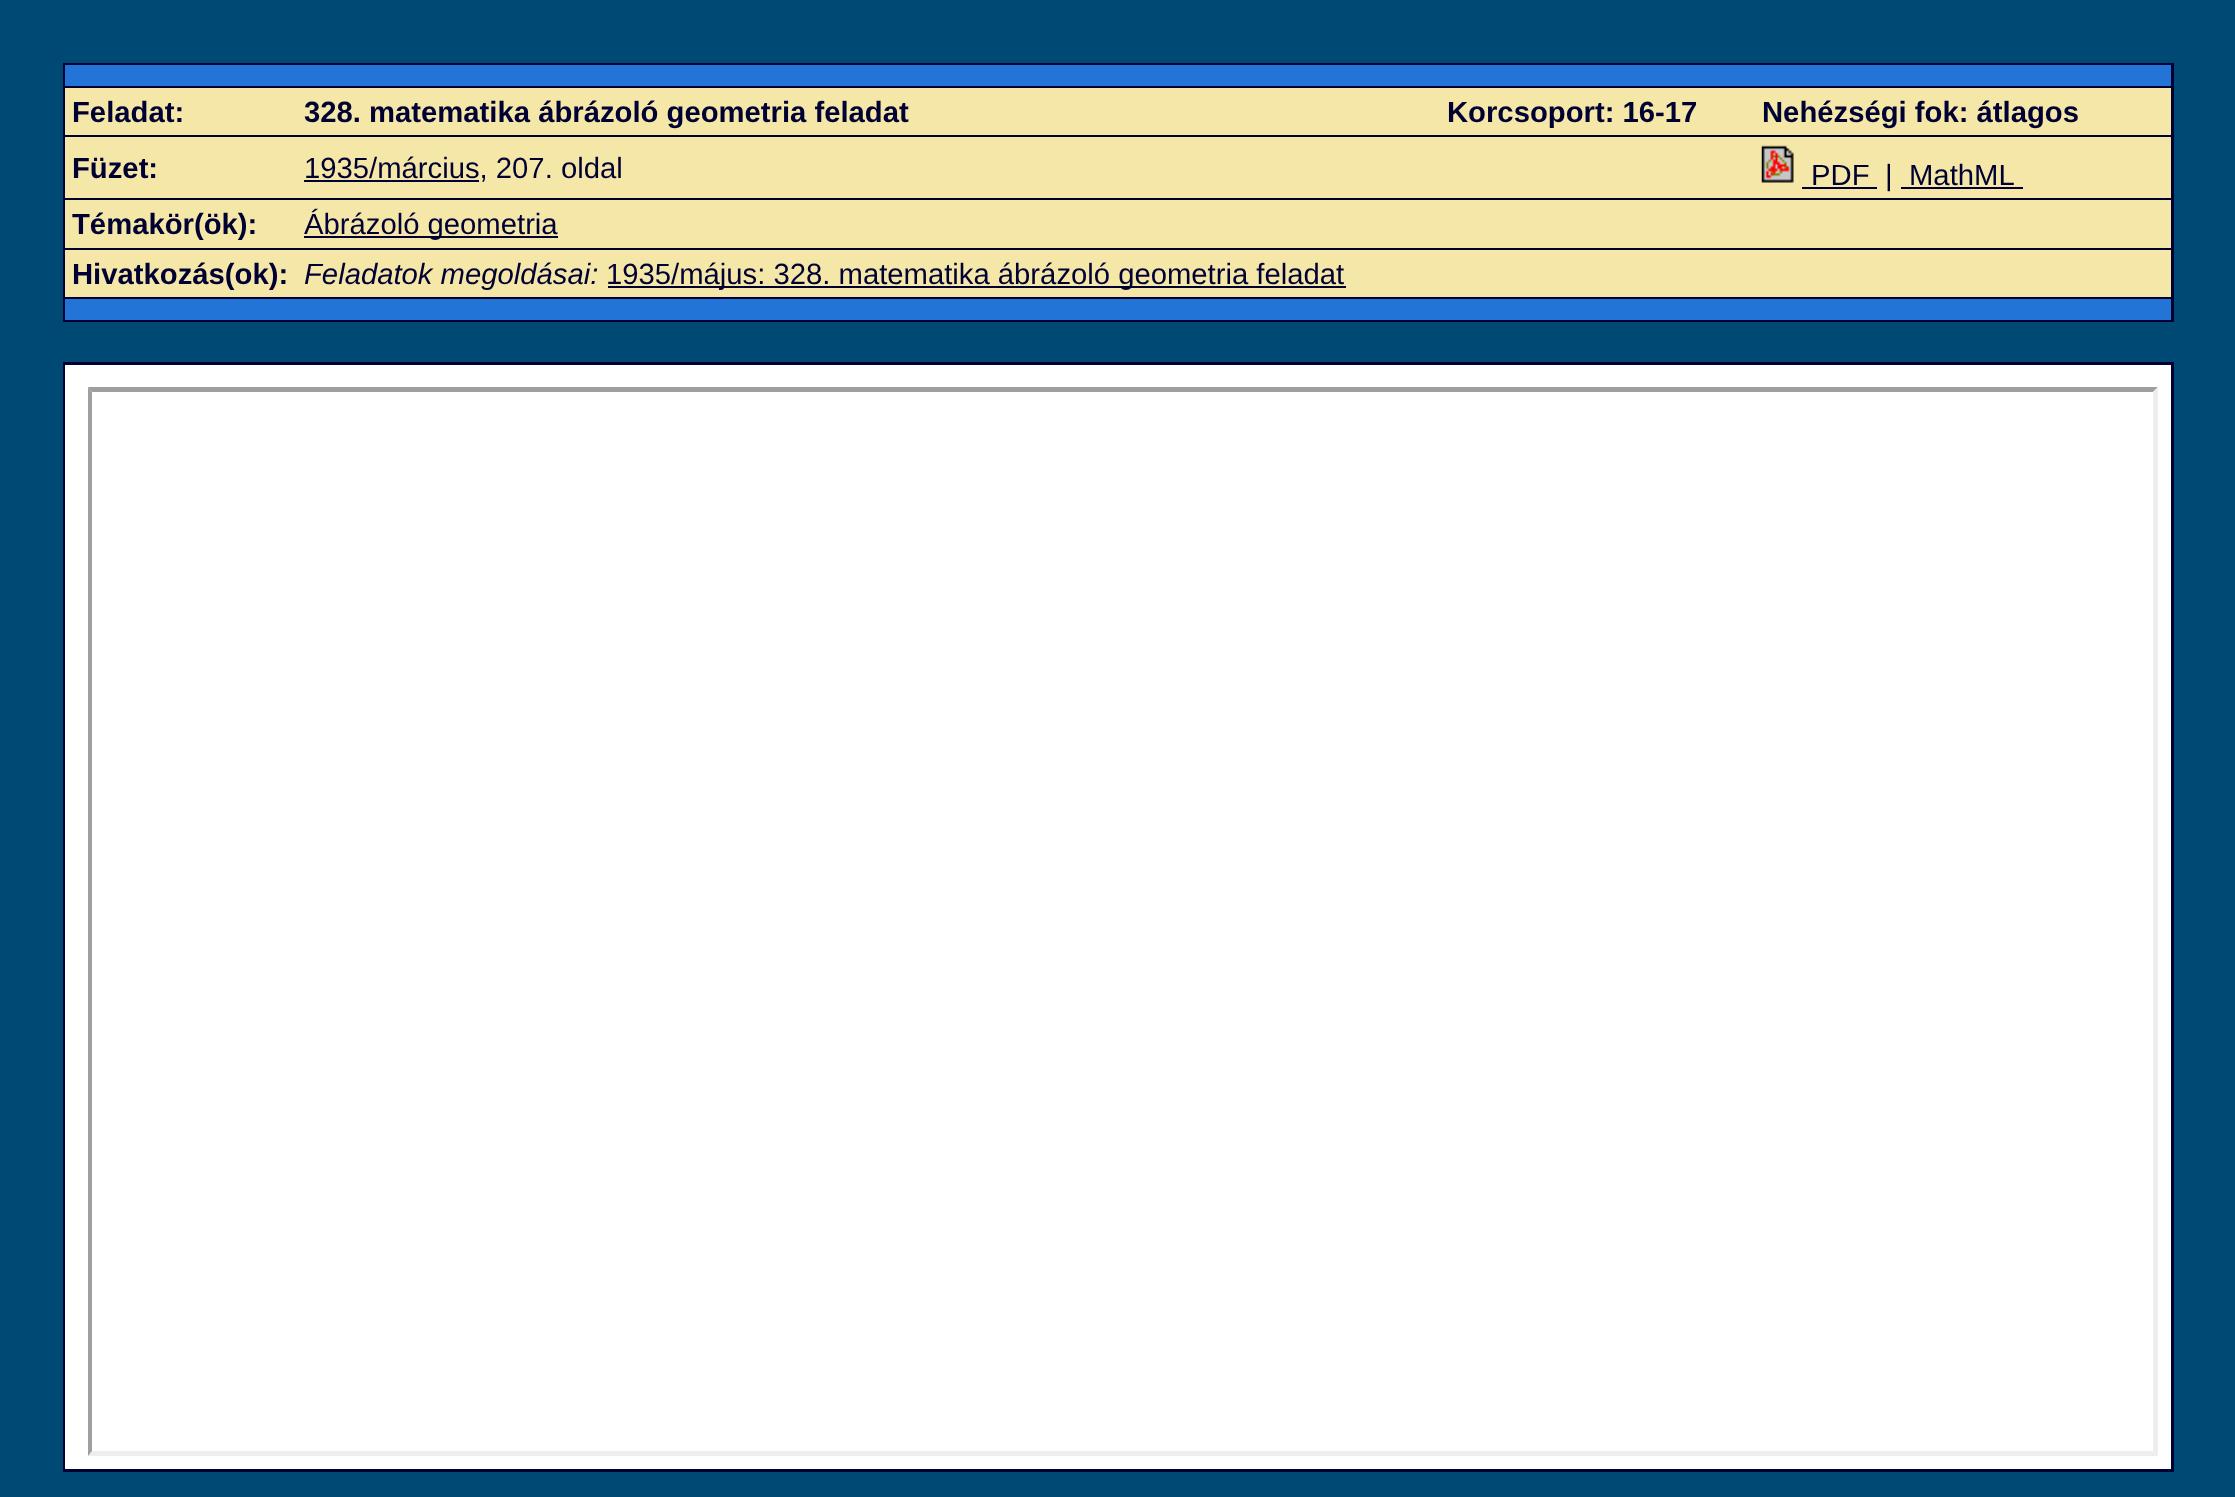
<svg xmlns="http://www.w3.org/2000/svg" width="2235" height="1497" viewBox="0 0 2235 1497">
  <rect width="100%" height="100%" fill="#004974"/>
  <rect x="63" y="63" width="2111" height="259" fill="#000033"/>
  <rect x="65" y="65" width="2106" height="21" fill="#2274d7"/>
  <rect x="65" y="88" width="2106" height="47" fill="#f4e7a8"/>
  <text x="72" y="122" font-family="Liberation Sans" font-size="29.25" font-weight="bold" fill="#000033">Feladat:</text>
  <text x="304" y="122" font-family="Liberation Sans" font-size="29.25" font-weight="bold" fill="#000033">328. matematika ábrázoló geometria feladat</text>
  <text x="1447" y="122" font-family="Liberation Sans" font-size="29.25" font-weight="bold" fill="#000033">Korcsoport: 16-17</text>
  <text x="1762" y="122" font-family="Liberation Sans" font-size="29.25" font-weight="bold" fill="#000033">Nehézségi fok: átlagos</text>
  <rect x="65" y="137" width="2106" height="61" fill="#f4e7a8"/>
  <text x="72" y="178" font-family="Liberation Sans" font-size="29.25" font-weight="bold" fill="#000033">Füzet:</text>
  <rect x="304" y="180" width="175" height="2" fill="#000033"/>
  <text x="304" y="178" font-family="Liberation Sans" font-size="29.25" fill="#000033">1935/március, 207. oldal</text>
  <image x="1761" y="145" width="33" height="38" href="img1.png"/>
  <text x="1811" y="185" font-family="Liberation Sans" font-size="29.25" fill="#000033">PDF</text>
  <rect x="1802" y="187" width="75" height="2" fill="#000033"/>
  <text x="1885" y="185" font-family="Liberation Sans" font-size="29.25" fill="#000033">|</text>
  <text x="1909" y="185" font-family="Liberation Sans" font-size="29.25" fill="#000033">MathML</text>
  <rect x="1901" y="187" width="122" height="2" fill="#000033"/>
  <rect x="65" y="200" width="2106" height="48" fill="#f4e7a8"/>
  <text x="72" y="234" font-family="Liberation Sans" font-size="29.25" font-weight="bold" fill="#000033">Témakör(ök):</text>
  <rect x="304" y="236" width="254" height="2" fill="#000033"/>
  <text x="304" y="234" font-family="Liberation Sans" font-size="29.25" fill="#000033">Ábrázoló geometria</text>
  <rect x="65" y="250" width="2106" height="47" fill="#f4e7a8"/>
  <text x="72" y="284" font-family="Liberation Sans" font-size="29.25" font-weight="bold" fill="#000033">Hivatkozás(ok):</text>
  <text x="304" y="284" font-family="Liberation Sans" font-size="29.25" font-style="italic" fill="#000033">Feladatok megoldásai:</text>
  <rect x="608" y="286" width="738" height="2" fill="#000033"/>
  <text x="606" y="284" font-family="Liberation Sans" font-size="29.25" fill="#000033">1935/május: 328. matematika ábrázoló geometria feladat</text>
  <rect x="65" y="299" width="2106" height="21" fill="#2274d7"/>
  <rect x="63" y="362" width="2111" height="1110" fill="#000033"/>
  <rect x="65" y="365" width="2106" height="1104" fill="#ffffff"/>
  <path d="M88 387H2158L2153 392H92Z" fill="#9f9f9f"/>
  <path d="M2158 387V1456L2153 1451V392Z" fill="#eeeeee"/>
  <path d="M2158 1456H88L92 1451H2153Z" fill="#eeeeee"/>
  <path d="M88 1456V387L92 392V1451Z" fill="#9f9f9f"/>
</svg>
